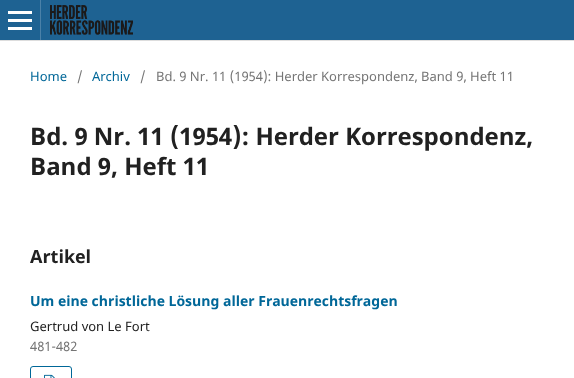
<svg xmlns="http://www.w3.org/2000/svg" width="574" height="378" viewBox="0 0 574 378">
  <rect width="100%" height="100%" fill="#ffffff"/>
  <rect x="0" y="0" width="574" height="40" fill="#1e6292"/>
  <rect x="0" y="40" width="574" height="1" fill="#dddddd"/>
  <rect x="40" y="0" width="1" height="40" fill="#4b81a8"/>
  <rect x="8" y="27" width="24" height="3" fill="#ffffff"/>
  <rect x="8" y="11" width="24" height="3" fill="#ffffff"/>
  <rect x="8" y="19" width="24" height="3" fill="#ffffff"/>
  <image x="50" y="5" width="83" height="30" href="img1.png"/>
  <text x="30" y="81" font-family="Noto Sans" font-size="13" fill="#006798">Home</text>
  <text x="77" y="81" font-family="Noto Sans" font-size="13" fill="#757575">/</text>
  <text x="92" y="81" font-family="Noto Sans" font-size="13" fill="#006798">Archiv</text>
  <text x="140" y="81" font-family="Noto Sans" font-size="13" fill="#757575">/</text>
  <text x="156" y="81" font-family="Noto Sans" font-size="13" fill="#757575">Bd. 9 Nr. 11 (1954): Herder Korrespondenz, Band 9, Heft 11</text>
  <text x="30" y="145" font-family="Noto Sans" font-size="24" font-weight="bold" fill="#212121">Bd. 9 Nr. 11 (1954): Herder Korrespondenz,</text>
  <text x="30" y="175" font-family="Noto Sans" font-size="24" font-weight="bold" fill="#212121">Band 9, Heft 11</text>
  <text x="30" y="263" font-family="Noto Sans" font-size="18" font-weight="bold" fill="#212121">Artikel</text>
  <text x="30" y="306" font-family="Noto Sans" font-size="14" font-weight="bold" fill="#006798">Um eine christliche Lösung aller Frauenrechtsfragen</text>
  <text x="30" y="331" font-family="Noto Sans" font-size="13" fill="#212121">Gertrud von Le Fort</text>
  <text x="30" y="351" font-family="Noto Sans" font-size="13" fill="#757575">481-482</text>
  <rect x="30.5" y="366.5" width="41" height="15" rx="2.5" fill="none" stroke="#006798"/>
  <image x="44" y="374" width="11" height="4" href="img2.png"/>
</svg>
